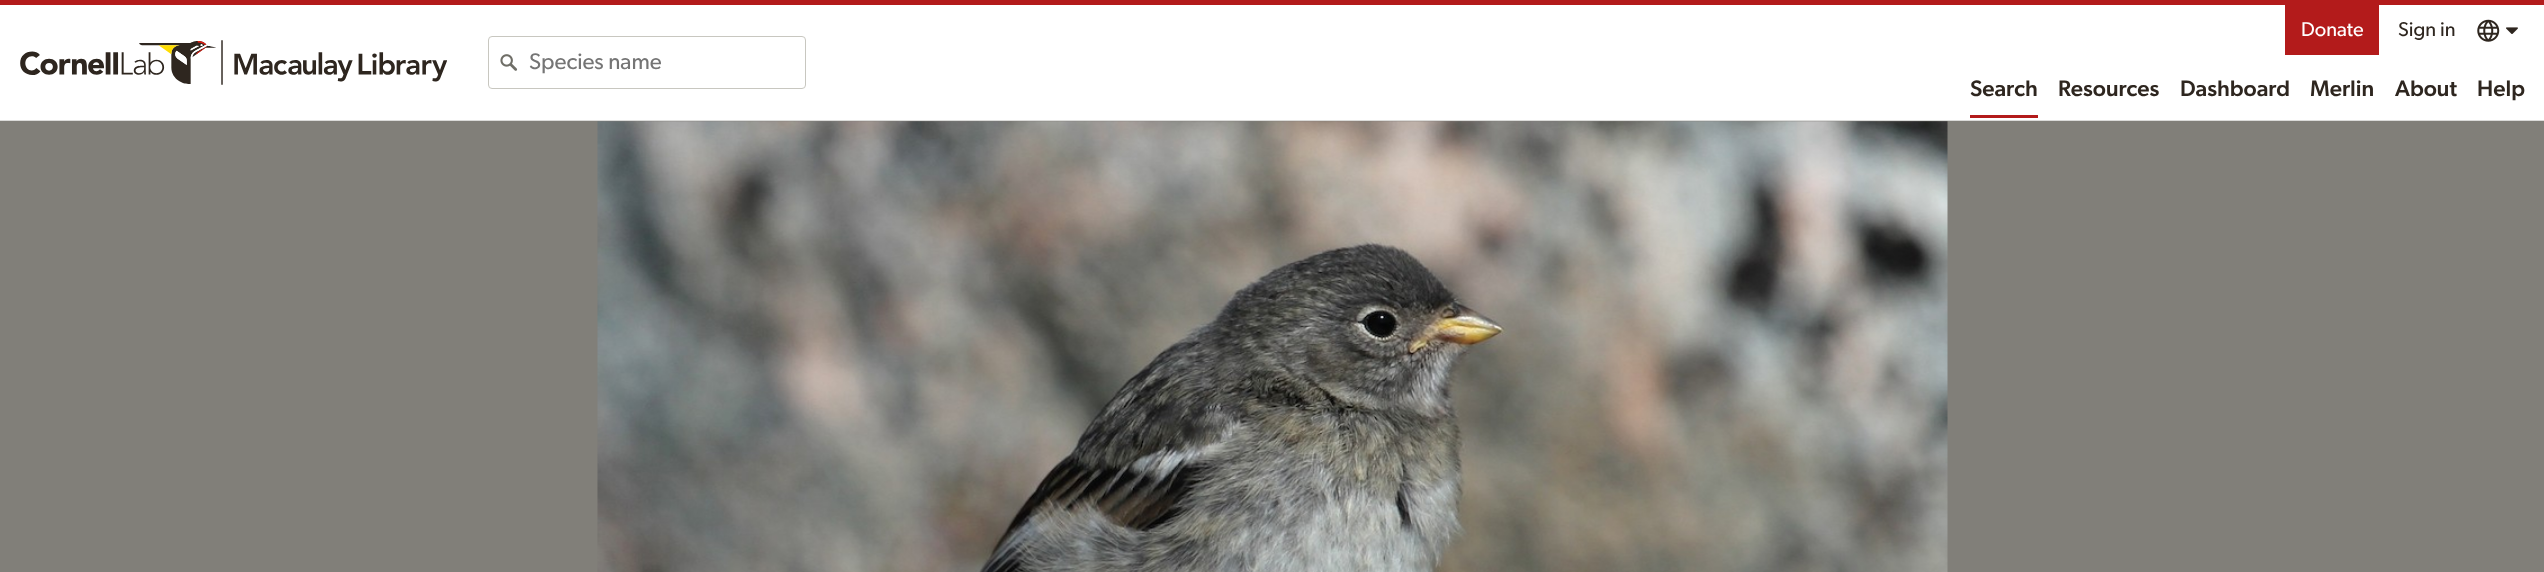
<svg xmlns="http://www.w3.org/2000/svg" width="2544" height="572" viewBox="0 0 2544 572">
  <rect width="100%" height="100%" fill="#ffffff"/>
  <rect x="0" y="0" width="2544" height="5" fill="#b31b1b"/>
  <rect x="0" y="120" width="2544" height="1" fill="#dbdbd9"/>
  <image x="20" y="40" width="427" height="45" href="img1.png"/>
  <rect x="488.5" y="36.5" width="317" height="52" rx="3.5" fill="none" stroke="#c8c7c0"/>
  <image x="500" y="54" width="18" height="17" href="img2.png"/>
  <text x="529" y="69" font-family="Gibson" font-size="22.5" fill="#757575">Species name</text>
  <rect x="2285" y="5" width="94" height="50" fill="#b31b1b"/>
  <text x="2301" y="36" font-family="Gibson" font-size="20" fill="#ffffff">Donate</text>
  <text x="2398" y="36" font-family="Gibson" font-size="20" fill="#2e261f">Sign in</text>
  <image x="2477" y="19" width="23" height="23" href="img3.png"/>
  <image x="2506" y="27" width="12" height="7" href="img4.png"/>
  <rect x="1970" y="115" width="68" height="3" fill="#b31b1b"/>
  <text x="1970" y="96" font-family="Gibson" font-size="22.5" font-weight="500" fill="#2e261f">Search</text>
  <text x="2058" y="96" font-family="Gibson" font-size="22.5" font-weight="500" fill="#2e261f">Resources</text>
  <text x="2180" y="96" font-family="Gibson" font-size="22.5" font-weight="500" fill="#2e261f">Dashboard</text>
  <text x="2310" y="96" font-family="Gibson" font-size="22.5" font-weight="500" fill="#2e261f">Merlin</text>
  <text x="2395" y="96" font-family="Gibson" font-size="22.5" font-weight="500" fill="#2e261f">About</text>
  <text x="2477" y="96" font-family="Gibson" font-size="22.5" font-weight="500" fill="#2e261f">Help</text>
  <rect x="0" y="121" width="2544" height="451" fill="#817f79"/>
  <image x="597" y="121" width="1351" height="451" href="img5.png"/>
</svg>
